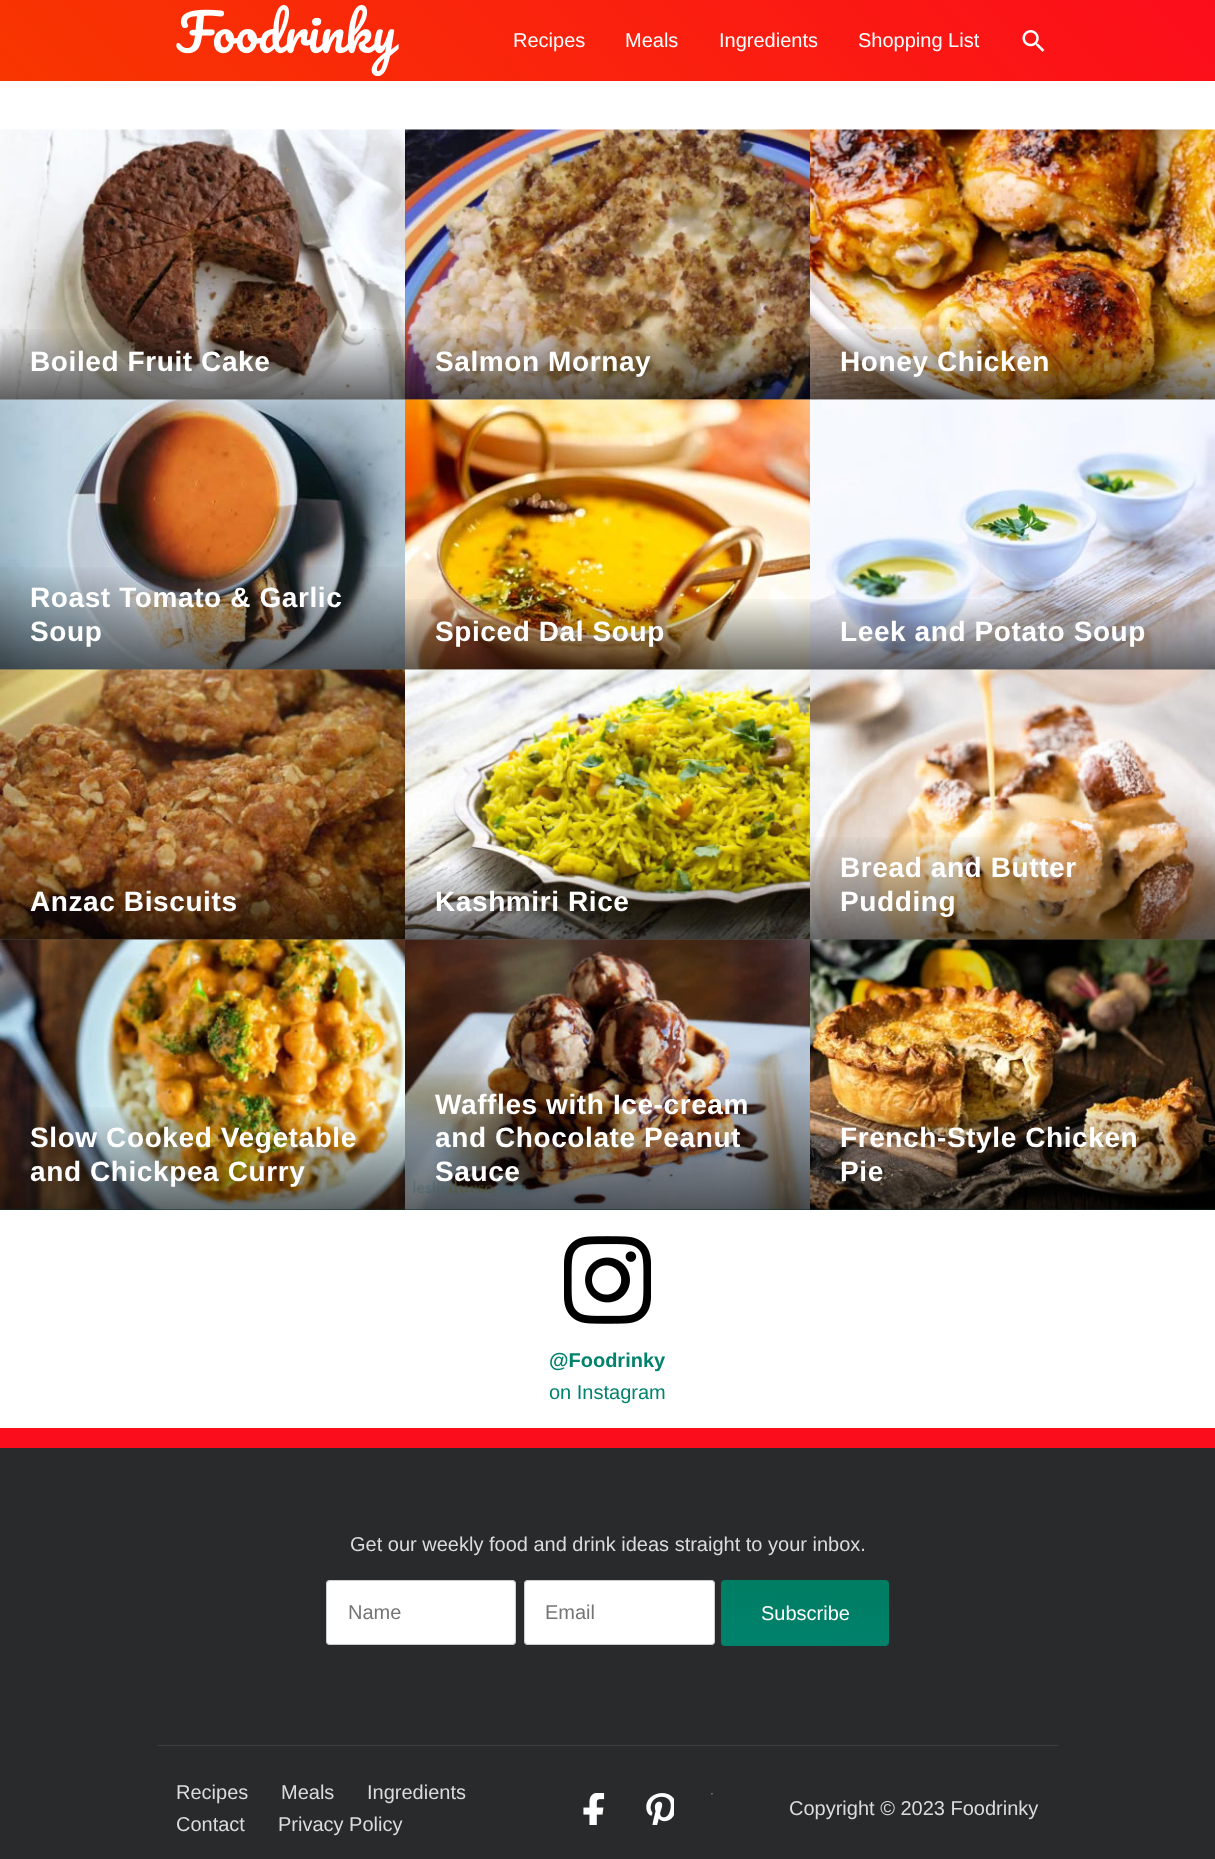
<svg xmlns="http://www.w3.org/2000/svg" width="1215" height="1859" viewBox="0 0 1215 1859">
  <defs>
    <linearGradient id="g1" gradientUnits="userSpaceOnUse" x1="283" y1="365" x2="932" y2="-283"><stop offset="0" stop-color="#f83600"/><stop offset="1" stop-color="#fc0d1b"/></linearGradient>
    <linearGradient id="g2" gradientUnits="userSpaceOnUse" x1="203" y1="400" x2="203" y2="326"><stop offset="0" stop-color="#000000" stop-opacity="0.6"/><stop offset="1" stop-color="#000000" stop-opacity="0"/></linearGradient>
    <linearGradient id="g3" gradientUnits="userSpaceOnUse" x1="608" y1="400" x2="608" y2="326"><stop offset="0" stop-color="#000000" stop-opacity="0.6"/><stop offset="1" stop-color="#000000" stop-opacity="0"/></linearGradient>
    <linearGradient id="g4" gradientUnits="userSpaceOnUse" x1="1013" y1="400" x2="1013" y2="326"><stop offset="0" stop-color="#000000" stop-opacity="0.6"/><stop offset="1" stop-color="#000000" stop-opacity="0"/></linearGradient>
    <linearGradient id="g5" gradientUnits="userSpaceOnUse" x1="203" y1="670" x2="203" y2="563"><stop offset="0" stop-color="#000000" stop-opacity="0.6"/><stop offset="1" stop-color="#000000" stop-opacity="0"/></linearGradient>
    <linearGradient id="g6" gradientUnits="userSpaceOnUse" x1="608" y1="670" x2="608" y2="596"><stop offset="0" stop-color="#000000" stop-opacity="0.6"/><stop offset="1" stop-color="#000000" stop-opacity="0"/></linearGradient>
    <linearGradient id="g7" gradientUnits="userSpaceOnUse" x1="1013" y1="670" x2="1013" y2="596"><stop offset="0" stop-color="#000000" stop-opacity="0.6"/><stop offset="1" stop-color="#000000" stop-opacity="0"/></linearGradient>
    <linearGradient id="g8" gradientUnits="userSpaceOnUse" x1="203" y1="940" x2="203" y2="866"><stop offset="0" stop-color="#000000" stop-opacity="0.6"/><stop offset="1" stop-color="#000000" stop-opacity="0"/></linearGradient>
    <linearGradient id="g9" gradientUnits="userSpaceOnUse" x1="608" y1="940" x2="608" y2="866"><stop offset="0" stop-color="#000000" stop-opacity="0.6"/><stop offset="1" stop-color="#000000" stop-opacity="0"/></linearGradient>
    <linearGradient id="g10" gradientUnits="userSpaceOnUse" x1="1013" y1="940" x2="1013" y2="833"><stop offset="0" stop-color="#000000" stop-opacity="0.6"/><stop offset="1" stop-color="#000000" stop-opacity="0"/></linearGradient>
    <linearGradient id="g11" gradientUnits="userSpaceOnUse" x1="34" y1="1244" x2="371" y2="906"><stop offset="0" stop-color="#00826d"/><stop offset="1" stop-color="#007d62"/></linearGradient>
    <linearGradient id="g12" gradientUnits="userSpaceOnUse" x1="203" y1="1210" x2="203" y2="1103"><stop offset="0" stop-color="#000000" stop-opacity="0.6"/><stop offset="1" stop-color="#000000" stop-opacity="0"/></linearGradient>
    <linearGradient id="g13" gradientUnits="userSpaceOnUse" x1="439" y1="1244" x2="776" y2="906"><stop offset="0" stop-color="#00826d"/><stop offset="1" stop-color="#007d62"/></linearGradient>
    <linearGradient id="g14" gradientUnits="userSpaceOnUse" x1="608" y1="1210" x2="608" y2="1069"><stop offset="0" stop-color="#000000" stop-opacity="0.6"/><stop offset="1" stop-color="#000000" stop-opacity="0"/></linearGradient>
    <linearGradient id="g15" gradientUnits="userSpaceOnUse" x1="844" y1="1244" x2="1181" y2="906"><stop offset="0" stop-color="#00826d"/><stop offset="1" stop-color="#007d62"/></linearGradient>
    <linearGradient id="g16" gradientUnits="userSpaceOnUse" x1="1013" y1="1210" x2="1013" y2="1103"><stop offset="0" stop-color="#000000" stop-opacity="0.6"/><stop offset="1" stop-color="#000000" stop-opacity="0"/></linearGradient>
    <linearGradient id="g17" gradientUnits="userSpaceOnUse" x1="801" y1="1653" x2="809" y2="1573"><stop offset="0" stop-color="#00826d"/><stop offset="1" stop-color="#007d62"/></linearGradient>
  </defs>
  <rect width="100%" height="100%" fill="#ffffff"/>
  <rect x="0" y="0" width="1215" height="81" fill="url(#g1)"/>
  <image x="176" y="5" width="223" height="71" href="img1.png"/>
  <text x="513" y="47" font-family="Liberation Sans" font-size="20" fill="#ffffff">Recipes</text>
  <text x="625" y="47" font-family="Liberation Sans" font-size="20" fill="#ffffff">Meals</text>
  <text x="719" y="47" font-family="Liberation Sans" font-size="20" fill="#ffffff">Ingredients</text>
  <text x="858" y="47" font-family="Liberation Sans" font-size="20" fill="#ffffff">Shopping List</text>
  <image x="1022" y="30" width="23" height="22" href="img2.png"/>
  <image x="0" y="129" width="405" height="271" href="img3.png"/>
  <rect x="0" y="329" width="405" height="71" fill="url(#g2)"/>
  <text x="30" y="371" font-family="Liberation Sans" font-size="28" font-weight="bold" letter-spacing="0.6" fill="#ffffff">Boiled Fruit Cake</text>
  <image x="405" y="129" width="405" height="271" href="img4.png"/>
  <rect x="405" y="329" width="405" height="71" fill="url(#g3)"/>
  <text x="435" y="371" font-family="Liberation Sans" font-size="28" font-weight="bold" letter-spacing="0.6" fill="#ffffff">Salmon Mornay</text>
  <image x="810" y="129" width="405" height="271" href="img5.png"/>
  <rect x="810" y="329" width="405" height="71" fill="url(#g4)"/>
  <text x="840" y="371" font-family="Liberation Sans" font-size="28" font-weight="bold" letter-spacing="0.6" fill="#ffffff">Honey Chicken</text>
  <image x="0" y="399" width="405" height="271" href="img6.png"/>
  <rect x="0" y="567" width="405" height="103" fill="url(#g5)"/>
  <text x="30" y="607" font-family="Liberation Sans" font-size="28" font-weight="bold" letter-spacing="0.6" fill="#ffffff">Roast Tomato &amp; Garlic</text>
  <text x="30" y="641" font-family="Liberation Sans" font-size="28" font-weight="bold" letter-spacing="0.6" fill="#ffffff">Soup</text>
  <image x="405" y="399" width="405" height="271" href="img7.png"/>
  <rect x="405" y="599" width="405" height="71" fill="url(#g6)"/>
  <text x="435" y="641" font-family="Liberation Sans" font-size="28" font-weight="bold" letter-spacing="0.6" fill="#ffffff">Spiced Dal Soup</text>
  <image x="810" y="399" width="405" height="271" href="img8.png"/>
  <rect x="810" y="599" width="405" height="71" fill="url(#g7)"/>
  <text x="840" y="641" font-family="Liberation Sans" font-size="28" font-weight="bold" letter-spacing="0.6" fill="#ffffff">Leek and Potato Soup</text>
  <image x="0" y="669" width="405" height="271" href="img9.png"/>
  <rect x="0" y="869" width="405" height="71" fill="url(#g8)"/>
  <text x="30" y="911" font-family="Liberation Sans" font-size="28" font-weight="bold" letter-spacing="0.6" fill="#ffffff">Anzac Biscuits</text>
  <image x="405" y="669" width="405" height="271" href="img10.png"/>
  <rect x="405" y="869" width="405" height="71" fill="url(#g9)"/>
  <text x="435" y="911" font-family="Liberation Sans" font-size="28" font-weight="bold" letter-spacing="0.6" fill="#ffffff">Kashmiri Rice</text>
  <image x="810" y="669" width="405" height="271" href="img11.png"/>
  <rect x="810" y="837" width="405" height="103" fill="url(#g10)"/>
  <text x="840" y="877" font-family="Liberation Sans" font-size="28" font-weight="bold" letter-spacing="0.6" fill="#ffffff">Bread and Butter</text>
  <text x="840" y="911" font-family="Liberation Sans" font-size="28" font-weight="bold" letter-spacing="0.6" fill="#ffffff">Pudding</text>
  <rect x="0" y="1209" width="405" height="1" fill="url(#g11)"/>
  <image x="0" y="939" width="405" height="271" href="img12.png"/>
  <rect x="0" y="1107" width="405" height="103" fill="url(#g12)"/>
  <text x="30" y="1147" font-family="Liberation Sans" font-size="28" font-weight="bold" letter-spacing="0.6" fill="#ffffff">Slow Cooked Vegetable</text>
  <text x="30" y="1181" font-family="Liberation Sans" font-size="28" font-weight="bold" letter-spacing="0.6" fill="#ffffff">and Chickpea Curry</text>
  <rect x="405" y="1209" width="405" height="1" fill="url(#g13)"/>
  <image x="405" y="939" width="405" height="271" href="img13.png"/>
  <rect x="405" y="1074" width="405" height="136" fill="url(#g14)"/>
  <text x="435" y="1114" font-family="Liberation Sans" font-size="28" font-weight="bold" letter-spacing="0.6" fill="#ffffff">Waffles with Ice-cream</text>
  <text x="435" y="1147" font-family="Liberation Sans" font-size="28" font-weight="bold" letter-spacing="0.6" fill="#ffffff">and Chocolate Peanut</text>
  <text x="435" y="1181" font-family="Liberation Sans" font-size="28" font-weight="bold" letter-spacing="0.6" fill="#ffffff">Sauce</text>
  <rect x="810" y="1209" width="405" height="1" fill="url(#g15)"/>
  <image x="810" y="939" width="405" height="271" href="img14.png"/>
  <rect x="810" y="1107" width="405" height="103" fill="url(#g16)"/>
  <text x="840" y="1147" font-family="Liberation Sans" font-size="28" font-weight="bold" letter-spacing="0.6" fill="#ffffff">French-Style Chicken</text>
  <text x="840" y="1181" font-family="Liberation Sans" font-size="28" font-weight="bold" letter-spacing="0.6" fill="#ffffff">Pie</text>
  <image x="564" y="1236" width="87" height="88" href="img15.png"/>
  <text x="549" y="1367" font-family="Liberation Sans" font-size="20" font-weight="bold" fill="#00826d">@Foodrinky</text>
  <text x="549" y="1399" font-family="Liberation Sans" font-size="20" fill="#00826d">on Instagram</text>
  <rect x="0" y="1448" width="1215" height="411" fill="#282a2b"/>
  <rect x="0" y="1428" width="1215" height="20" fill="#fc0d1b"/>
  <rect x="158" y="1745" width="900" height="1" fill="#3c3f40"/>
  <text x="350" y="1551" font-family="Liberation Sans" font-size="20" fill="#dbdcdd">Get our weekly food and drink ideas straight to your inbox.</text>
  <rect x="326" y="1580" width="190" height="65" rx="4" fill="#ffffff"/>
  <rect x="326.5" y="1580.5" width="189" height="64" rx="3.5" fill="none" stroke="#000000" stroke-opacity="0.2"/>
  <text x="348" y="1619" font-family="Liberation Sans" font-size="20" fill="#757575">Name</text>
  <rect x="524" y="1580" width="191" height="65" rx="4" fill="#ffffff"/>
  <rect x="524.5" y="1580.5" width="190" height="64" rx="3.5" fill="none" stroke="#000000" stroke-opacity="0.2"/>
  <text x="545" y="1619" font-family="Liberation Sans" font-size="20" fill="#757575">Email</text>
  <rect x="721" y="1580" width="168" height="66" rx="4" fill="url(#g17)"/>
  <text x="761" y="1620" font-family="Liberation Sans" font-size="20" fill="#ffffff">Subscribe</text>
  <text x="176" y="1799" font-family="Liberation Sans" font-size="20" fill="#dbdcdd">Recipes</text>
  <text x="281" y="1799" font-family="Liberation Sans" font-size="20" fill="#dbdcdd">Meals</text>
  <text x="367" y="1799" font-family="Liberation Sans" font-size="20" fill="#dbdcdd">Ingredients</text>
  <text x="176" y="1831" font-family="Liberation Sans" font-size="20" fill="#dbdcdd">Contact</text>
  <text x="278" y="1831" font-family="Liberation Sans" font-size="20" fill="#dbdcdd">Privacy Policy</text>
  <image x="583" y="1793" width="22" height="32" href="img16.png"/>
  <image x="646" y="1793" width="28" height="32" href="img17.png"/>
  <image x="711" y="1793" width="2" height="2" href="img18.png"/>
  <text x="789" y="1815" font-family="Liberation Sans" font-size="20" fill="#dbdcdd">Copyright © 2023 Foodrinky</text>
</svg>
